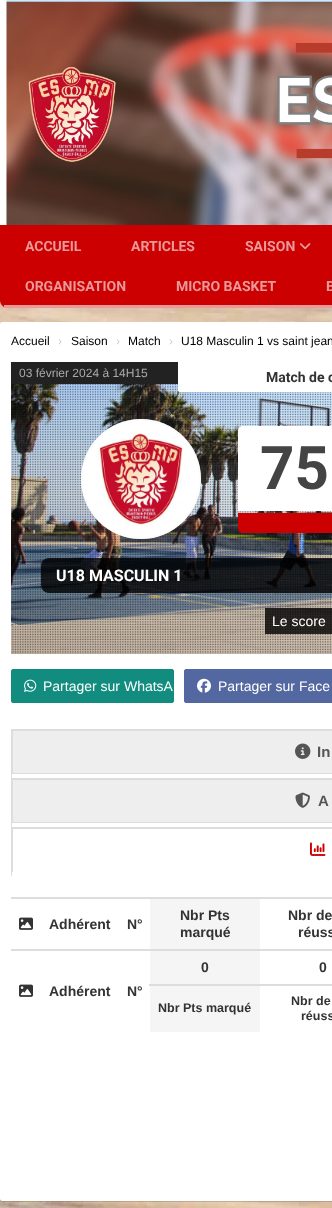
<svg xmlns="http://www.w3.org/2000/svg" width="332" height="1208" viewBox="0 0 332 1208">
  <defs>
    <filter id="blur1" x="-50%" y="-200%" width="200%" height="500%"><feGaussianBlur stdDeviation="0.5"/></filter>
  </defs>
  <rect width="100%" height="100%" fill="#ffffff"/>
  <image x="0" y="300" width="332" height="908" href="img1.png"/>
  <image x="0" y="0" width="332" height="225" href="img2.png"/>
  <image x="28" y="66" width="88" height="96" href="img3.png"/>
  <path d="M0 225H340V300C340 304.5 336.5 308 332 308H8C3.5 308 0 304.5 0 300Z" fill="#cc0000"/>
  <rect x="4" y="305" width="328" height="3" fill="#ea9999"/>
  <text x="25" y="251" font-family="Roboto" font-size="14" font-weight="bold" fill="#ea9999">ACCUEIL</text>
  <text x="131" y="251" font-family="Roboto" font-size="14" font-weight="bold" fill="#ea9999">ARTICLES</text>
  <text x="245" y="251" font-family="Roboto" font-size="14" font-weight="bold" fill="#ea9999">SAISON</text>
  <image x="300" y="243" width="11" height="7" href="img4.png"/>
  <text x="25" y="291" font-family="Roboto" font-size="14" font-weight="bold" fill="#ea9999">ORGANISATION</text>
  <text x="176" y="291" font-family="Roboto" font-size="14" font-weight="bold" fill="#ea9999">MICRO BASKET</text>
  <text x="326" y="291" font-family="Roboto" font-size="14" font-weight="bold" fill="#ea9999">B</text>
  <rect x="0" y="323" width="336" height="879" rx="2" fill="#000000" fill-opacity="0.15" filter="url(#blur1)"/>
  <rect x="0" y="322" width="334" height="879" rx="2" fill="#ffffff"/>
  <text x="11" y="345" font-family="Liberation Sans" font-size="12" fill="#000000">Accueil</text>
  <text x="58" y="345" font-family="Liberation Sans" font-size="12" fill="#cccccc">›</text>
  <text x="71" y="345" font-family="Liberation Sans" font-size="12" fill="#000000">Saison</text>
  <text x="116" y="345" font-family="Liberation Sans" font-size="12" fill="#cccccc">›</text>
  <text x="128" y="345" font-family="Liberation Sans" font-size="12" fill="#000000">Match</text>
  <text x="169" y="345" font-family="Liberation Sans" font-size="12" fill="#cccccc">›</text>
  <text x="181" y="345" font-family="Liberation Sans" font-size="12" fill="#000000">U18 Masculin 1 vs saint jean</text>
  <image x="11" y="384" width="321" height="270" href="img5.png"/>
  <image x="11" y="384" width="321" height="270" href="img6.png"/>
  <rect x="11" y="362" width="167" height="22" fill="#222222"/>
  <text x="19" y="377" font-family="Liberation Sans" font-size="12" fill="#aaaaaa">03 février 2024 à 14H15</text>
  <path d="M178 362H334V390C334 391 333 392 332 392H180C179 392 178 391 178 390Z" fill="#ffffff"/>
  <text x="266" y="382" font-family="Roboto" font-size="14" font-weight="bold" fill="#333333">Match de c</text>
  <circle cx="141" cy="479" r="60" fill="#ffffff"/>
  <circle cx="141" cy="479" r="59" fill="none" stroke="#fafafa" stroke-opacity="0.5" stroke-width="2"/>
  <image x="95" y="433" width="88" height="93" href="img7.png"/>
  <path d="M243 426H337V511H238V431C238 428 240 426 243 426Z" fill="#ffffff"/>
  <text x="260" y="489" font-family="Roboto" font-size="60" font-weight="bold" fill="#444444">75</text>
  <path d="M238 513H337V528C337 531 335 533 332 533H243C240 533 238 531 238 528Z" fill="#cc0000"/>
  <rect x="41" y="558" width="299" height="35" rx="8" fill="#000000" fill-opacity="0.8"/>
  <text x="56" y="581" font-family="Roboto" font-size="16" font-weight="bold" fill="#ffffff">U18 MASCULIN 1</text>
  <rect x="265" y="608" width="67" height="26" fill="#000000" fill-opacity="0.8"/>
  <text x="272" y="626" font-family="Liberation Sans" font-size="14" fill="#ffffff">Le score</text>
  <rect x="11.5" y="669.5" width="162" height="33" rx="1.5" fill="#128c7e" stroke="#128c7e"/>
  <image x="24" y="679" width="13" height="13" href="img8.png"/>
  <text x="43" y="691" font-family="Liberation Sans" font-size="14" fill="#ffffff">Partager sur WhatsA</text>
  <rect x="184.5" y="669.5" width="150" height="33" rx="1.5" fill="#5367a0" stroke="#5367a0"/>
  <image x="197" y="678" width="14" height="15" href="img9.png"/>
  <text x="218" y="691" font-family="Liberation Sans" font-size="14" fill="#ffffff">Partager sur Face</text>
  <rect x="11" y="729" width="1" height="147" fill="#dddddd"/>
  <rect x="13" y="731" width="319" height="42" fill="#eeeeee"/>
  <rect x="12" y="729" width="320" height="2" fill="#dddddd"/>
  <rect x="12" y="773" width="320" height="1" fill="#dddddd"/>
  <rect x="12" y="729" width="1" height="45" fill="#dddddd"/>
  <image x="295" y="743" width="16" height="16" href="img10.png"/>
  <text x="317" y="757" font-family="Liberation Sans" font-size="15" font-weight="bold" fill="#555555">In</text>
  <rect x="13" y="780" width="319" height="42" fill="#eeeeee"/>
  <rect x="12" y="778" width="320" height="2" fill="#dddddd"/>
  <rect x="12" y="822" width="320" height="1" fill="#dddddd"/>
  <rect x="12" y="778" width="1" height="45" fill="#dddddd"/>
  <image x="295" y="792" width="15" height="16" href="img11.png"/>
  <text x="318" y="806" font-family="Liberation Sans" font-size="15" font-weight="bold" fill="#555555">A</text>
  <rect x="12" y="827" width="320" height="2" fill="#dddddd"/>
  <rect x="12" y="827" width="1" height="45" fill="#dddddd"/>
  <image x="310" y="842" width="16" height="14" href="img12.png"/>
  <rect x="11" y="897" width="321" height="2" fill="#dddddd"/>
  <image x="19" y="917" width="14" height="13" href="img13.png"/>
  <text x="49" y="929" font-family="Liberation Sans" font-size="14" font-weight="bold" fill="#333333">Adhérent</text>
  <text x="127" y="929" font-family="Liberation Sans" font-size="14" font-weight="bold" fill="#333333">N°</text>
  <rect x="150" y="899" width="110" height="50" fill="#f5f5f5"/>
  <text x="180" y="920" font-family="Liberation Sans" font-size="14" font-weight="bold" fill="#333333">Nbr Pts</text>
  <text x="180" y="937" font-family="Liberation Sans" font-size="14" font-weight="bold" fill="#333333">marqué</text>
  <text x="288" y="920" font-family="Liberation Sans" font-size="14" font-weight="bold" fill="#333333">Nbr de</text>
  <text x="298" y="937" font-family="Liberation Sans" font-size="14" font-weight="bold" fill="#333333">réuss</text>
  <rect x="150" y="951" width="110" height="33" fill="#f5f5f5"/>
  <text x="201" y="972" font-family="Liberation Sans" font-size="14" font-weight="bold" fill="#333333">0</text>
  <rect x="11" y="949" width="321" height="2" fill="#dddddd"/>
  <text x="319" y="972" font-family="Liberation Sans" font-size="14" font-weight="bold" fill="#333333">0</text>
  <image x="19" y="984" width="14" height="13" href="img13.png"/>
  <text x="49" y="996" font-family="Liberation Sans" font-size="14" font-weight="bold" fill="#333333">Adhérent</text>
  <text x="127" y="996" font-family="Liberation Sans" font-size="14" font-weight="bold" fill="#333333">N°</text>
  <rect x="150" y="986" width="110" height="46" fill="#f5f5f5"/>
  <text x="158" y="1012" font-family="Liberation Sans" font-size="12.5" font-weight="bold" fill="#333333">Nbr Pts marqué</text>
  <rect x="149" y="984" width="183" height="2" fill="#dddddd"/>
  <text x="291" y="1005" font-family="Liberation Sans" font-size="12.5" font-weight="bold" fill="#333333">Nbr de</text>
  <text x="301" y="1020" font-family="Liberation Sans" font-size="12.5" font-weight="bold" fill="#333333">réuss</text>
</svg>
